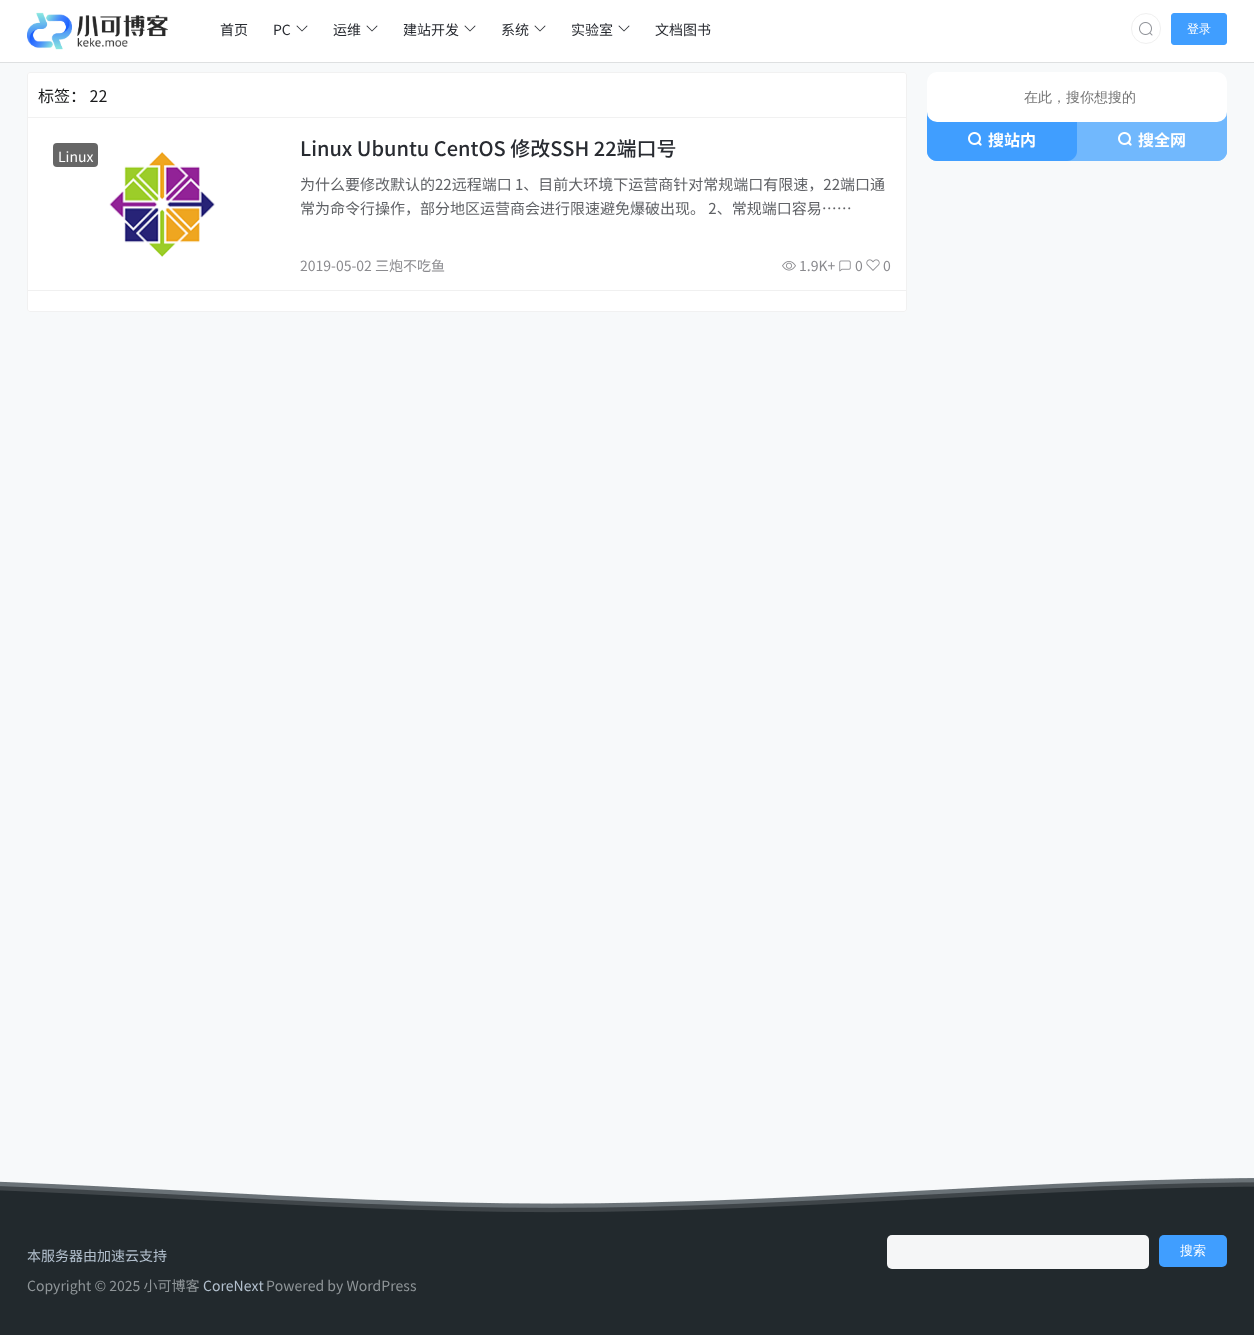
<svg xmlns="http://www.w3.org/2000/svg" width="1254" height="1335" viewBox="0 0 1254 1335">
  <style>*{font-kerning:none!important;font-variant-ligatures:none!important}</style>
  <defs>
    <filter id="blur1" x="-50%" y="-200%" width="200%" height="500%"><feGaussianBlur stdDeviation="0.5"/></filter>
  </defs>
  <rect width="100%" height="100%" fill="#f7f9fa"/>
  <rect x="0" y="0" width="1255" height="63" fill="#000000" fill-opacity="0.1" filter="url(#blur1)"/>
  <rect x="0" y="0" width="1254" height="62" fill="#ffffff"/>
  <image x="27" y="12" width="141" height="38" href="img1.png"/>
  <text x="220" y="35" font-family="Noto Sans CJK SC" font-size="14" fill="#282b31">首页</text>
  <text x="273" y="35" font-family="Noto Sans CJK SC" font-size="14" fill="#282b31">PC</text>
  <image x="296" y="25" width="12" height="7" href="img2.png"/>
  <text x="333" y="35" font-family="Noto Sans CJK SC" font-size="14" fill="#282b31">运维</text>
  <image x="366" y="25" width="12" height="7" href="img2.png"/>
  <text x="403" y="35" font-family="Noto Sans CJK SC" font-size="14" fill="#282b31">建站开发</text>
  <image x="464" y="25" width="12" height="7" href="img2.png"/>
  <text x="501" y="35" font-family="Noto Sans CJK SC" font-size="14" fill="#282b31">系统</text>
  <image x="534" y="25" width="12" height="7" href="img2.png"/>
  <text x="571" y="35" font-family="Noto Sans CJK SC" font-size="14" fill="#282b31">实验室</text>
  <image x="618" y="25" width="12" height="7" href="img2.png"/>
  <text x="655" y="35" font-family="Noto Sans CJK SC" font-size="14" fill="#282b31">文档图书</text>
  <rect x="1131.5" y="13.5" width="29" height="30" rx="14.5" fill="none" stroke="#f0f0f0"/>
  <image x="1139" y="22" width="14" height="14" href="img3.png"/>
  <rect x="1171.5" y="13.5" width="55" height="31" rx="2.5" fill="#409eff" stroke="#409eff"/>
  <text x="1187" y="33" font-family="WenQuanYi Zen Hei" font-size="12" font-weight="500" fill="#ffffff">登录</text>
  <rect x="27" y="72" width="880" height="240" rx="3" fill="#ffffff"/>
  <rect x="27.5" y="72.5" width="879" height="239" rx="2.5" fill="none" stroke="#efefef" stroke-opacity="0.9"/>
  <rect x="28" y="117" width="878" height="1" fill="#f1f1f1"/>
  <text x="38" y="102" font-family="Noto Sans CJK SC" font-size="16" fill="#18191a">标签： 22</text>
  <rect x="28" y="290" width="878" height="1" fill="#f0f0f0"/>
  <rect x="53" y="143" width="45" height="24" rx="4" fill="#666666"/>
  <text x="58" y="162" font-family="Noto Sans CJK SC" font-size="14" fill="#ffffff">Linux</text>
  <image x="109" y="152" width="106" height="105" href="img4.png"/>
  <text x="300" y="156" font-family="Noto Sans CJK SC" font-size="20" font-weight="500" fill="#282b31">Linux Ubuntu CentOS 修改SSH 22端口号</text>
  <text x="300" y="190" font-family="Noto Sans CJK SC" font-size="15" fill="#606266">为什么要修改默认的22远程端口 1、目前大环境下运营商针对常规端口有限速，22端口通</text>
  <text x="300" y="214" font-family="Noto Sans CJK SC" font-size="15" fill="#606266">常为命令行操作，部分地区运营商会进行限速避免爆破出现。 2、常规端口容易……</text>
  <text x="300" y="271" font-family="Noto Sans CJK SC" font-size="14" fill="#8a8a8e">2019-05-02 三炮不吃鱼</text>
  <image x="782" y="261" width="14" height="10" href="img5.png"/>
  <text x="799" y="271" font-family="Noto Sans CJK SC" font-size="14" fill="#8a8a8e">1.9K+</text>
  <image x="839" y="260" width="12" height="12" href="img6.png"/>
  <text x="855" y="271" font-family="Noto Sans CJK SC" font-size="14" fill="#8a8a8e">0</text>
  <image x="866" y="259" width="14" height="12" href="img7.png"/>
  <text x="883" y="271" font-family="Noto Sans CJK SC" font-size="14" fill="#8a8a8e">0</text>
  <path d="M927 112H1227V151C1227 156.5 1222.5 161 1217 161H937C931.5 161 927 156.5 927 151Z" fill="#71b8fd"/>
  <path d="M927 112H1077V151C1077 156.5 1072.5 161 1067 161H937C931.5 161 927 156.5 927 151Z" fill="#409eff"/>
  <path d="M1077 112H1227V151C1227 156.5 1222.5 161 1217 161H1077Z" fill="#71b8fd"/>
  <rect x="927" y="72" width="300" height="50" rx="10" fill="#ffffff"/>
  <text x="1024" y="102" font-family="WenQuanYi Zen Hei" font-size="14" font-weight="500" fill="#757575">在此，搜你想搜的</text>
  <image x="968" y="132" width="14" height="14" href="img8.png"/>
  <text x="988" y="146" font-family="Noto Sans CJK SC" font-size="16" font-weight="bold" fill="#ffffff">搜站内</text>
  <image x="1118" y="132" width="14" height="14" href="img9.png"/>
  <text x="1138" y="146" font-family="Noto Sans CJK SC" font-size="16" font-weight="bold" fill="#ffffff">搜全网</text>
  <image x="0" y="1178" width="1254" height="37" href="img10.png"/>
  <rect x="0" y="1215" width="1254" height="120" fill="#22292d"/>
  <text x="27" y="1261" font-family="Noto Sans CJK SC" font-size="14" fill="#b3c0ce">本服务器由加速云支持</text>
  <text x="27" y="1291" font-family="Noto Sans CJK SC" font-size="14" fill="#8f9598">Copyright © 2025 小可博客</text>
  <text x="203" y="1291" font-family="Noto Sans CJK SC" font-size="14" fill="#b3c0ce">CoreNext</text>
  <text x="266" y="1291" font-family="Noto Sans CJK SC" font-size="14" fill="#8f9598">Powered by WordPress</text>
  <rect x="887" y="1235" width="262" height="34" rx="5" fill="#f5f6f7"/>
  <rect x="1159" y="1235" width="68" height="32" rx="5" fill="#409eff"/>
  <text x="1180" y="1255" font-family="WenQuanYi Zen Hei" font-size="13" font-weight="500" fill="#ffffff">搜索</text>
</svg>
